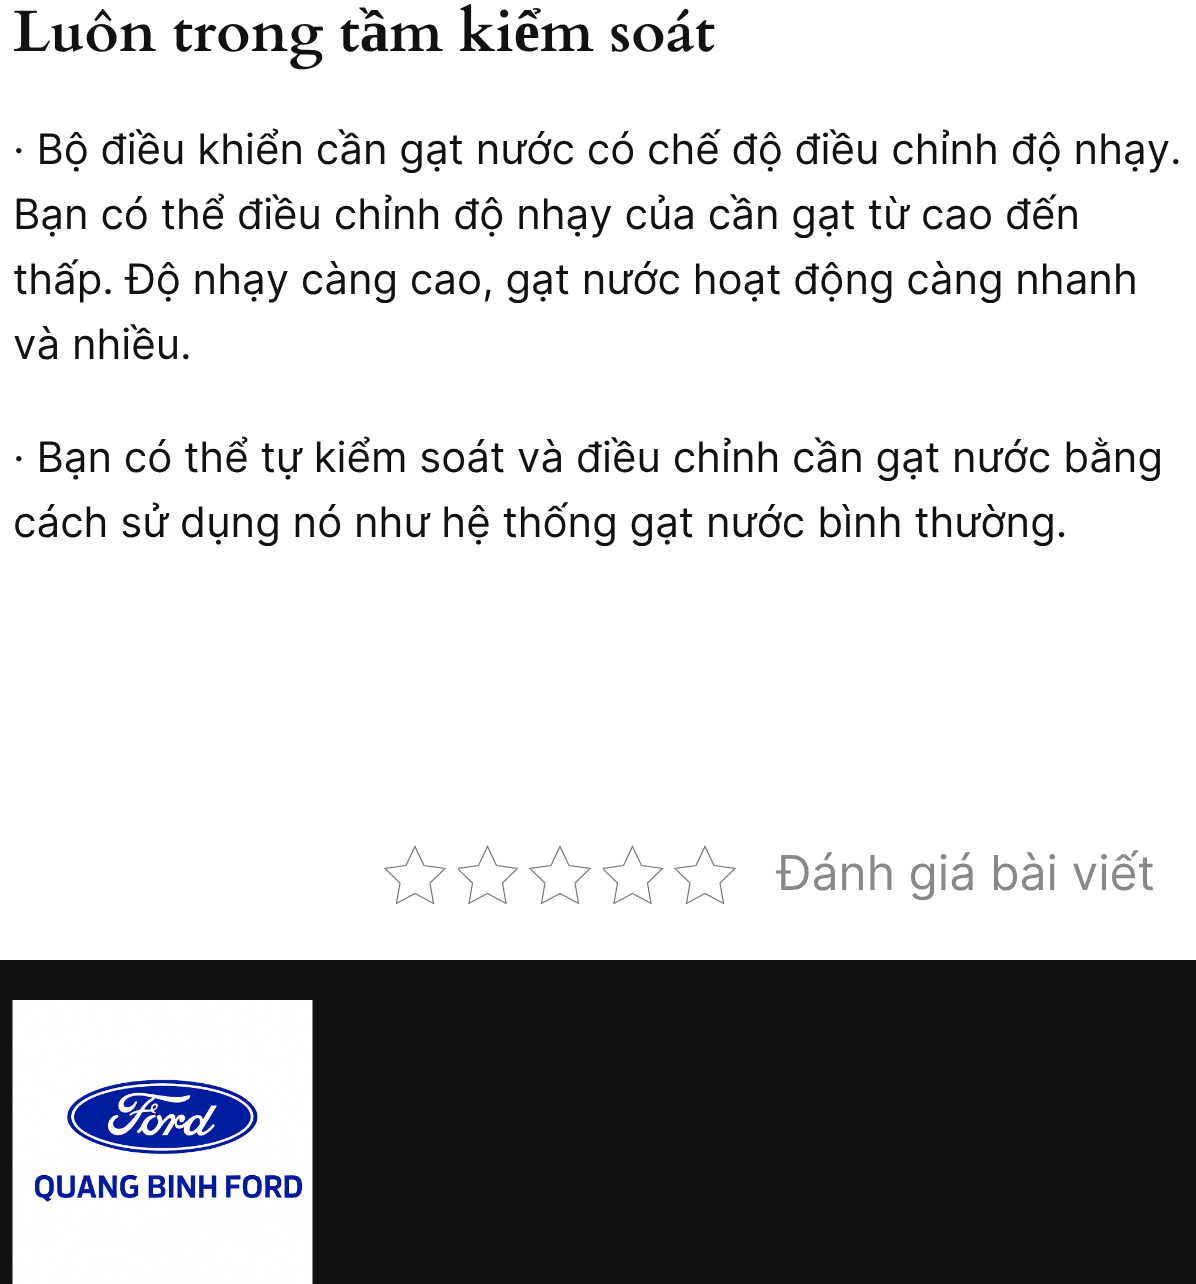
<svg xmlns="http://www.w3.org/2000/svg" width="1196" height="1284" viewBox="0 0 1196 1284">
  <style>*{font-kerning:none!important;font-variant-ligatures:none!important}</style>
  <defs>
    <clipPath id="clip1"><rect x="458" y="845" width="60" height="60"/></clipPath>
    <clipPath id="clip2"><rect x="603" y="845" width="60" height="60"/></clipPath>
  </defs>
  <rect width="100%" height="100%" fill="#ffffff"/>
  <text x="13" y="51" font-family="Cardo" font-size="58.6" font-weight="bold" fill="#111111">Luôn trong tầm kiểm soát</text>
  <text x="13" y="164" font-family="Inter" font-size="42" fill="#111111">· Bộ điều khiển cần gạt nước có chế độ điều chỉnh độ nhạy.</text>
  <text x="13" y="229" font-family="Inter" font-size="42" fill="#111111">Bạn có thể điều chỉnh độ nhạy của cần gạt từ cao đến</text>
  <text x="13" y="294" word-spacing="-0.1" font-family="Inter" font-size="42" fill="#111111">thấp. Độ nhạy càng cao, gạt nước hoạt động càng nhanh</text>
  <text x="13" y="359" font-family="Inter" font-size="42" fill="#111111">và nhiều.</text>
  <text x="13" y="472" font-family="Inter" font-size="42" fill="#111111">· Bạn có thể tự kiểm soát và điều chỉnh cần gạt nước bằng</text>
  <text x="13" y="537" font-family="Inter" font-size="42" fill="#111111">cách sử dụng nó như hệ thống gạt nước bình thường.</text>
  <path d="M415 846.5L424 865.5L445 868.5L430 883L433.5 903.5L415 893.5L396.5 903.5L400 883L385 868.5L406 865.5Z" fill="none" stroke="#777777" stroke-width="1.2"/>
  <g clip-path="url(#clip1)">
    <path d="M487.5 846.5L496.5 865.5L517.5 868.5L502.5 883L506 903.5L487.5 893.5L469 903.5L472.5 883L457.5 868.5L478.5 865.5Z" fill="none" stroke="#777777" stroke-width="1.2"/>
  </g>
  <path d="M560 846.5L569 865.5L590 868.5L575 883L578.5 903.5L560 893.5L541.5 903.5L545 883L530 868.5L551 865.5Z" fill="none" stroke="#777777" stroke-width="1.2"/>
  <g clip-path="url(#clip2)">
    <path d="M632.5 846.5L641.5 865.5L662.5 868.5L647.5 883L651 903.5L632.5 893.5L614 903.5L617.5 883L602.5 868.5L623.5 865.5Z" fill="none" stroke="#777777" stroke-width="1.2"/>
  </g>
  <path d="M705 846.5L714 865.5L735 868.5L720 883L723.5 903.5L705 893.5L686.5 903.5L690 883L675 868.5L696 865.5Z" fill="none" stroke="#777777" stroke-width="1.2"/>
  <text x="777" y="890" font-family="Inter" font-size="48" fill="#888888">Đánh giá bài viết</text>
  <rect x="0" y="960" width="1196" height="324" fill="#111111"/>
  <image x="12" y="1000" width="301" height="284" href="img1.png"/>
</svg>
